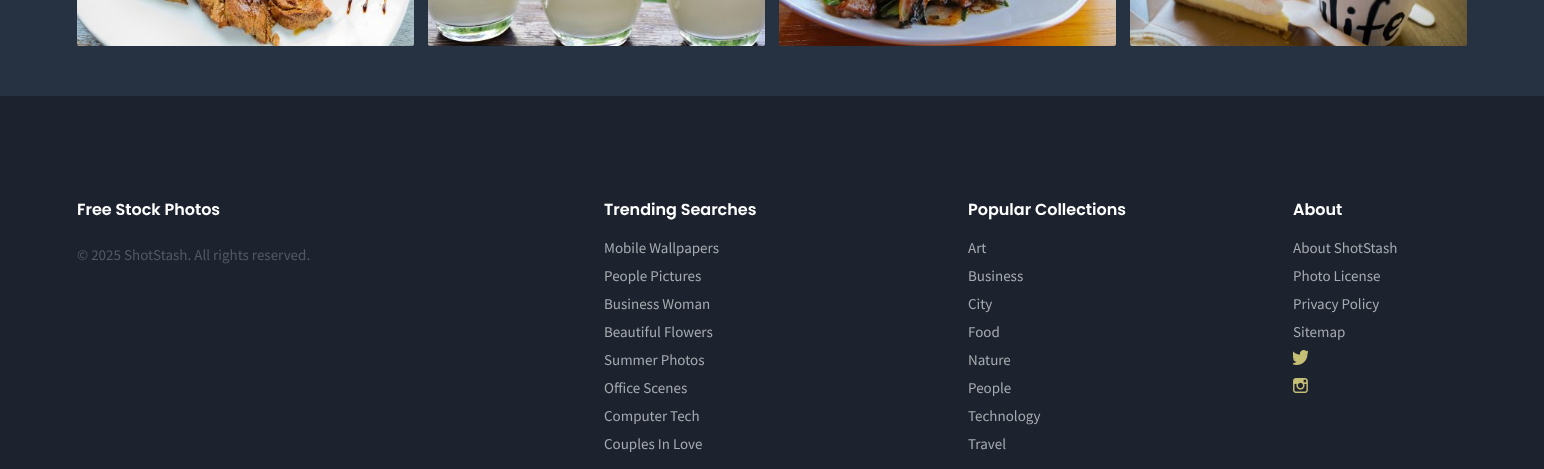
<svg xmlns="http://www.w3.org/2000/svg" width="1544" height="469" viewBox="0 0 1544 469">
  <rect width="100%" height="100%" fill="#263142"/>
  <image x="77" y="0" width="337" height="46" href="img1.png"/>
  <image x="428" y="0" width="337" height="46" href="img2.png"/>
  <image x="779" y="0" width="337" height="46" href="img3.png"/>
  <image x="1130" y="0" width="337" height="46" href="img4.png"/>
  <rect x="0" y="96" width="1544" height="373" fill="#1c232f"/>
  <text x="77" y="215" font-family="Poppins" font-size="16" font-weight="600" fill="#ffffff">Free Stock Photos</text>
  <text x="77" y="260" font-family="Source Sans Pro" font-size="15" fill="#525964">© 2025 ShotStash. All rights reserved.</text>
  <text x="604" y="215" font-family="Poppins" font-size="16" font-weight="600" fill="#ffffff">Trending Searches</text>
  <text x="604" y="253" font-family="Source Sans Pro" font-size="15" fill="#a7aaaf">Mobile Wallpapers</text>
  <text x="604" y="281" font-family="Source Sans Pro" font-size="15" fill="#a7aaaf">People Pictures</text>
  <text x="604" y="309" font-family="Source Sans Pro" font-size="15" fill="#a7aaaf">Business Woman</text>
  <text x="604" y="337" font-family="Source Sans Pro" font-size="15" fill="#a7aaaf">Beautiful Flowers</text>
  <text x="604" y="365" font-family="Source Sans Pro" font-size="15" fill="#a7aaaf">Summer Photos</text>
  <text x="604" y="393" font-family="Source Sans Pro" font-size="15" fill="#a7aaaf">Office Scenes</text>
  <text x="604" y="421" font-family="Source Sans Pro" font-size="15" fill="#a7aaaf">Computer Tech</text>
  <text x="604" y="449" font-family="Source Sans Pro" font-size="15" fill="#a7aaaf">Couples In Love</text>
  <text x="968" y="215" font-family="Poppins" font-size="16" font-weight="600" fill="#ffffff">Popular Collections</text>
  <text x="968" y="253" font-family="Source Sans Pro" font-size="15" fill="#a7aaaf">Art</text>
  <text x="968" y="281" font-family="Source Sans Pro" font-size="15" fill="#a7aaaf">Business</text>
  <text x="968" y="309" font-family="Source Sans Pro" font-size="15" fill="#a7aaaf">City</text>
  <text x="968" y="337" font-family="Source Sans Pro" font-size="15" fill="#a7aaaf">Food</text>
  <text x="968" y="365" font-family="Source Sans Pro" font-size="15" fill="#a7aaaf">Nature</text>
  <text x="968" y="393" font-family="Source Sans Pro" font-size="15" fill="#a7aaaf">People</text>
  <text x="968" y="421" font-family="Source Sans Pro" font-size="15" fill="#a7aaaf">Technology</text>
  <text x="968" y="449" font-family="Source Sans Pro" font-size="15" fill="#a7aaaf">Travel</text>
  <text x="1293" y="215" font-family="Poppins" font-size="16" font-weight="600" fill="#ffffff">About</text>
  <text x="1293" y="253" font-family="Source Sans Pro" font-size="15" fill="#a7aaaf">About ShotStash</text>
  <text x="1293" y="281" font-family="Source Sans Pro" font-size="15" fill="#a7aaaf">Photo License</text>
  <text x="1293" y="309" font-family="Source Sans Pro" font-size="15" fill="#a7aaaf">Privacy Policy</text>
  <text x="1293" y="337" font-family="Source Sans Pro" font-size="15" fill="#a7aaaf">Sitemap</text>
  <image x="1293" y="350" width="15" height="15" href="img5.png"/>
  <image x="1293" y="378" width="15" height="15" href="img6.png"/>
</svg>
